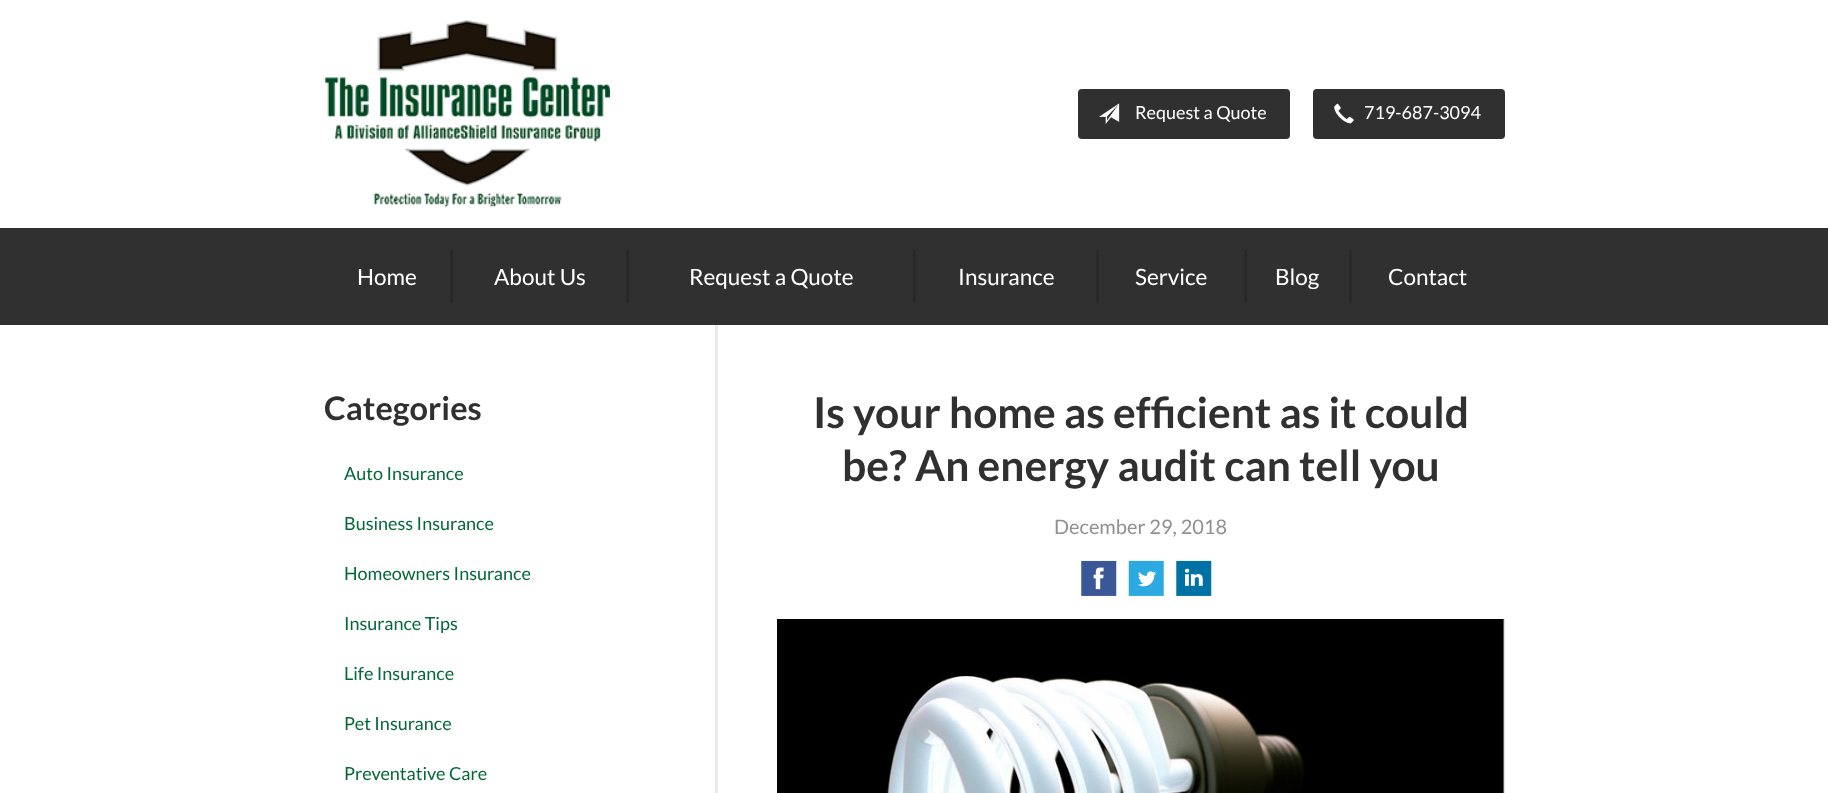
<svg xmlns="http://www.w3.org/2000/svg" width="1828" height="793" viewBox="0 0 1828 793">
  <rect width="100%" height="100%" fill="#ffffff"/>
  <image x="324" y="20" width="286" height="187" href="img1.png"/>
  <rect x="1078" y="89" width="212" height="50" rx="4" fill="#303030"/>
  <image x="1099" y="103" width="21" height="21" href="img2.png"/>
  <text x="1135" y="119" font-family="Lato" font-size="18" fill="#ffffff">Request a Quote</text>
  <rect x="1313" y="89" width="192" height="50" rx="4" fill="#303030"/>
  <image x="1334" y="103" width="20" height="21" href="img3.png"/>
  <text x="1364" y="119" font-family="Lato" font-size="18" fill="#ffffff">719-687-3094</text>
  <rect x="0" y="228" width="1828" height="97" fill="#303030"/>
  <rect x="450" y="250" width="3" height="53" fill="#292929"/>
  <text x="357" y="285" font-family="Lato" font-size="22.5" fill="#ffffff">Home</text>
  <rect x="626" y="250" width="3" height="53" fill="#292929"/>
  <text x="494" y="285" font-family="Lato" font-size="22.5" fill="#ffffff">About Us</text>
  <rect x="913" y="250" width="3" height="53" fill="#292929"/>
  <text x="689" y="285" font-family="Lato" font-size="22.5" fill="#ffffff">Request a Quote</text>
  <rect x="1096" y="250" width="3" height="53" fill="#292929"/>
  <text x="958" y="285" font-family="Lato" font-size="22.5" fill="#ffffff">Insurance</text>
  <rect x="1244" y="250" width="3" height="53" fill="#292929"/>
  <text x="1135" y="285" font-family="Lato" font-size="22.5" fill="#ffffff">Service</text>
  <rect x="1349" y="250" width="3" height="53" fill="#292929"/>
  <text x="1275" y="285" font-family="Lato" font-size="22.5" fill="#ffffff">Blog</text>
  <text x="1388" y="285" font-family="Lato" font-size="22.5" fill="#ffffff">Contact</text>
  <rect x="715" y="325" width="3" height="468" fill="#ebeaea"/>
  <text x="324" y="420" font-family="Lato" font-size="32.5" font-weight="bold" fill="#303030">Categories</text>
  <text x="344" y="480" font-family="Lato" font-size="18" fill="#056839">Auto Insurance</text>
  <text x="344" y="530" font-family="Lato" font-size="18" fill="#056839">Business Insurance</text>
  <text x="344" y="580" font-family="Lato" font-size="18" fill="#056839">Homeowners Insurance</text>
  <text x="344" y="630" font-family="Lato" font-size="18" fill="#056839">Insurance Tips</text>
  <text x="344" y="680" font-family="Lato" font-size="18" fill="#056839">Life Insurance</text>
  <text x="344" y="730" font-family="Lato" font-size="18" fill="#056839">Pet Insurance</text>
  <text x="344" y="780" font-family="Lato" font-size="18" fill="#056839">Preventative Care</text>
  <text x="813" y="428" font-family="Lato" font-size="42.5" font-weight="bold" fill="#303030">Is your home as efficient as it could</text>
  <text x="842" y="481" font-family="Lato" font-size="42.5" font-weight="bold" fill="#303030">be? An energy audit can tell you</text>
  <text x="1054" y="534" font-family="Lato" font-size="20" fill="#909090">December 29, 2018</text>
  <image x="1081" y="560" width="36" height="36" href="img4.png"/>
  <image x="1128" y="560" width="36" height="36" href="img5.png"/>
  <image x="1176" y="560" width="36" height="36" href="img6.png"/>
  <image x="777" y="619" width="728" height="174" href="img7.png"/>
</svg>
